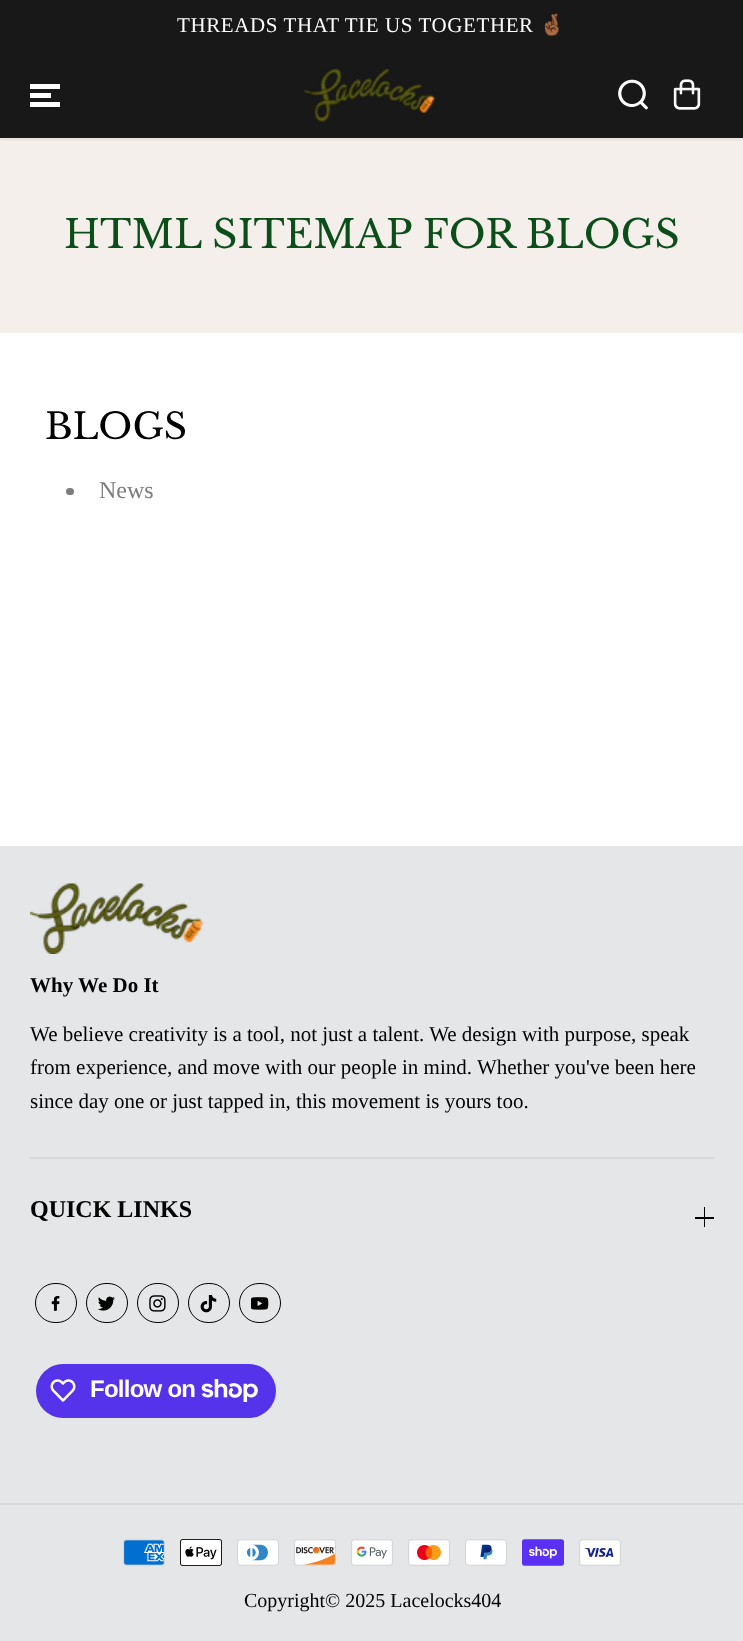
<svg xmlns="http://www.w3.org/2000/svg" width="743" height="1641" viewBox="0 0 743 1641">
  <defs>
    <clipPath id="clip1"><rect x="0" y="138" width="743" height="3"/></clipPath>
    <filter id="blur1" x="-50%" y="-200%" width="200%" height="500%"><feGaussianBlur stdDeviation="1.5"/></filter>
  </defs>
  <rect width="100%" height="100%" fill="#ffffff"/>
  <rect x="0" y="0" width="743" height="138" fill="#181818"/>
  <text x="177" y="32" font-family="Liberation Serif" font-size="21" letter-spacing="0.6" fill="#ffffff">THREADS THAT TIE US TOGETHER</text>
  <text x="539" y="32" font-family="Noto Color Emoji" font-size="21" letter-spacing="0.6" fill="#ffffff">🤞🏾</text>
  <rect x="0" y="138" width="743" height="195" fill="#f5efec"/>
  <g clip-path="url(#clip1)">
    <rect x="0" y="56" width="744" height="85" fill="#000000" fill-opacity="0.05" filter="url(#blur1)"/>
  </g>
  <rect x="30" y="93" width="21" height="5" fill="#ffffff"/>
  <rect x="30" y="84" width="30" height="5" fill="#ffffff"/>
  <rect x="30" y="102" width="30" height="5" fill="#ffffff"/>
  <image x="304" y="69" width="132" height="53" href="img1.png"/>
  <image x="618" y="79" width="30" height="31" href="img2.png"/>
  <image x="673" y="79" width="28" height="31" href="img3.png"/>
  <text x="64" y="248" font-family="Libre Baskerville" font-size="39" fill="#0c4e19">HTML SITEMAP FOR BLOGS</text>
  <text x="45" y="439" font-family="Libre Baskerville" font-size="36" fill="#000000">BLOGS</text>
  <rect x="66" y="488" width="8" height="7" rx="3.5" fill="#7c7c7c"/>
  <text x="99" y="498" font-family="Liberation Serif" font-size="24" fill="#7c7c7c">News</text>
  <rect x="0" y="846" width="743" height="795" fill="#e4e6e7"/>
  <rect x="30" y="1157" width="684" height="2" fill="#d7dadb"/>
  <image x="30" y="883" width="175" height="71" href="img4.png"/>
  <text x="30" y="992" font-family="Liberation Serif" font-size="21" font-weight="bold" fill="#000000">Why We Do It</text>
  <text x="30" y="1041" font-family="Liberation Serif" font-size="21" fill="#000000">We believe creativity is a tool, not just a talent. We design with purpose, speak</text>
  <text x="30" y="1074" font-family="Liberation Serif" font-size="21" fill="#000000">from experience, and move with our people in mind. Whether you've been here</text>
  <text x="30" y="1108" font-family="Liberation Serif" font-size="21" fill="#000000">since day one or just tapped in, this movement is yours too.</text>
  <text x="30" y="1217" font-family="Liberation Serif" font-size="24" font-weight="bold" fill="#000000">QUICK LINKS</text>
  <rect x="704" y="1207" width="1" height="20" fill="#000000"/>
  <rect x="695" y="1217" width="19" height="2" fill="#000000"/>
  <image x="51" y="1296" width="9" height="15" href="img5.png"/>
  <rect x="35.5" y="1283.5" width="41" height="39" rx="19.5" fill="none" stroke="#000000"/>
  <image x="98" y="1296" width="17" height="15" href="img6.png"/>
  <rect x="86.5" y="1283.5" width="41" height="39" rx="19.5" fill="none" stroke="#000000"/>
  <image x="149" y="1295" width="17" height="17" href="img7.png"/>
  <rect x="137.5" y="1283.5" width="41" height="39" rx="19.5" fill="none" stroke="#000000"/>
  <image x="200" y="1295" width="17" height="18" href="img8.png"/>
  <rect x="188.5" y="1283.5" width="41" height="39" rx="19.5" fill="none" stroke="#000000"/>
  <image x="251" y="1297" width="18" height="13" href="img9.png"/>
  <rect x="239.5" y="1283.5" width="41" height="39" rx="19.5" fill="none" stroke="#000000"/>
  <rect x="36" y="1364" width="240" height="54" rx="27" fill="#5433eb"/>
  <image x="50" y="1379" width="26" height="23" href="img10.png"/>
  <text x="90" y="1397" font-family="Liberation Sans" font-size="24" font-weight="bold" letter-spacing="-0.75" fill="#ffffff">Follow on</text>
  <image x="201" y="1379" width="57" height="23" href="img11.png"/>
  <rect x="0" y="1503" width="743" height="2" fill="#d7dadb"/>
  <image x="123" y="1539" width="42" height="27" href="img12.png"/>
  <image x="180" y="1539" width="42" height="27" href="img13.png"/>
  <image x="237" y="1539" width="42" height="27" href="img14.png"/>
  <image x="294" y="1539" width="42" height="27" href="img15.png"/>
  <image x="351" y="1539" width="42" height="27" href="img16.png"/>
  <image x="408" y="1539" width="42" height="27" href="img17.png"/>
  <image x="465" y="1539" width="42" height="27" href="img18.png"/>
  <image x="522" y="1539" width="42" height="27" href="img19.png"/>
  <image x="579" y="1539" width="42" height="27" href="img20.png"/>
  <text x="244" y="1607" font-family="Liberation Serif" font-size="20" fill="#000000">Copyright© 2025 Lacelocks404</text>
</svg>
